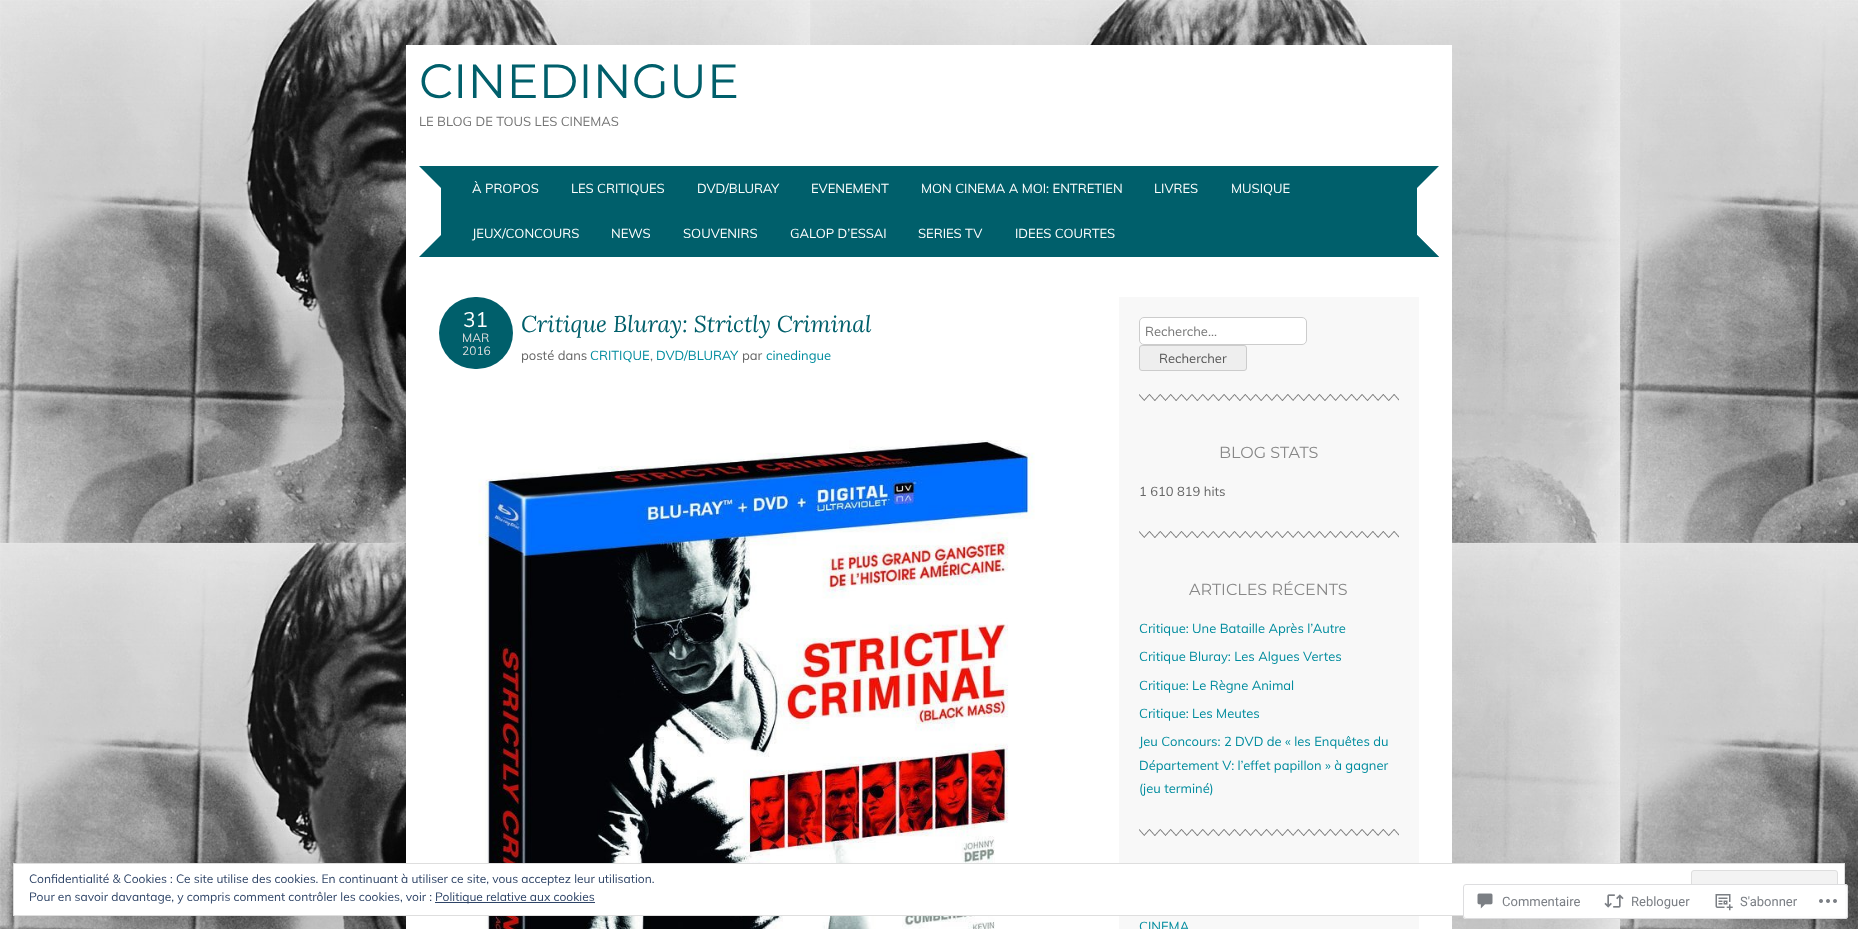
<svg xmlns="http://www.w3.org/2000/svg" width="1858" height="929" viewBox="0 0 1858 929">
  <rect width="100%" height="100%" fill="#ffffff"/>
  <image x="0" y="0" width="1858" height="929" href="img1.png"/>
  <rect x="406" y="45" width="1046" height="884" fill="#ffffff"/>
  <image x="478" y="440" width="557" height="489" href="img2.png"/>
  <rect x="1119" y="297" width="300" height="632" fill="#f8f8f8"/>
  <rect x="13.5" y="863.5" width="1831" height="52" fill="#ffffff" stroke="#dedede"/>
  <text x="29" y="883" font-family="Muli" font-size="12" fill="#2e4467">Confidentialité &amp; Cookies : Ce site utilise des cookies. En continuant à utiliser ce site, vous acceptez leur utilisation.</text>
  <rect x="1691.5" y="870.5" width="146" height="38" rx="2.5" fill="#f3f3f3" stroke="#dedede"/>
  <text x="29" y="901" font-family="Muli" font-size="12" fill="#2e4467">Pour en savoir davantage, y compris comment contrôler les cookies, voir :</text>
  <rect x="435" y="902" width="160" height="1" fill="#2e4467"/>
  <text x="435" y="901" font-family="Muli" font-size="12" fill="#2e4467">Politique relative aux cookies</text>
  <text x="419" y="98" font-family="Montserrat" font-size="48" fill="#005f6b">CINEDINGUE</text>
  <text x="419" y="126" font-family="Muli" font-size="13" fill="#757575">LE BLOG DE TOUS LES CINEMAS</text>
  <rect x="419" y="166" width="1020" height="91" fill="#005f6b"/>
  <path d="M419 257V166L441 188V235Z" fill="#ffffff"/>
  <text x="472" y="193" font-family="Muli" font-size="13" fill="#ffffff">À PROPOS</text>
  <text x="571" y="193" font-family="Muli" font-size="13" fill="#ffffff">LES CRITIQUES</text>
  <text x="697" y="193" font-family="Muli" font-size="13" fill="#ffffff">DVD/BLURAY</text>
  <text x="811" y="193" font-family="Muli" font-size="13" fill="#ffffff">EVENEMENT</text>
  <text x="921" y="193" font-family="Muli" font-size="13" fill="#ffffff">MON CINEMA A MOI: ENTRETIEN</text>
  <text x="1154" y="193" font-family="Muli" font-size="13" fill="#ffffff">LIVRES</text>
  <text x="1231" y="193" font-family="Muli" font-size="13" fill="#ffffff">MUSIQUE</text>
  <text x="472" y="238" font-family="Muli" font-size="13" fill="#ffffff">JEUX/CONCOURS</text>
  <text x="611" y="238" font-family="Muli" font-size="13" fill="#ffffff">NEWS</text>
  <text x="683" y="238" font-family="Muli" font-size="13" fill="#ffffff">SOUVENIRS</text>
  <text x="790" y="238" font-family="Muli" font-size="13" fill="#ffffff">GALOP D’ESSAI</text>
  <text x="918" y="238" font-family="Muli" font-size="13" fill="#ffffff">SERIES TV</text>
  <text x="1015" y="238" font-family="Muli" font-size="13" fill="#ffffff">IDEES COURTES</text>
  <path d="M1439 166V257L1417 235V188Z" fill="#ffffff"/>
  <path d="M1439 257H1393L1417 235Z" fill="#005f6b"/>
  <rect x="439" y="297" width="74" height="72" rx="36" fill="#005f6b"/>
  <text x="463" y="327" font-family="Muli" font-size="21" fill="#ffffff">31</text>
  <text x="462" y="342" font-family="Muli" font-size="12" fill="#dddddd">MAR</text>
  <text x="462" y="355" font-family="Muli" font-size="12" fill="#dddddd">2016</text>
  <text x="521" y="332" font-family="Lora" font-size="23" font-style="italic" fill="#005f6b">Critique Bluray: Strictly Criminal</text>
  <text x="521" y="360" font-family="Muli" font-size="13" fill="#666666">posté dans</text>
  <text x="590" y="360" font-family="Muli" font-size="13" fill="#008c9e">CRITIQUE</text>
  <text x="650" y="360" font-family="Muli" font-size="13" fill="#666666">,</text>
  <text x="656" y="360" font-family="Muli" font-size="13" fill="#008c9e">DVD/BLURAY</text>
  <text x="742" y="360" font-family="Muli" font-size="13" fill="#666666">par</text>
  <text x="766" y="360" font-family="Muli" font-size="13" fill="#008c9e">cinedingue</text>
  <image x="1139" y="394" width="260" height="7" href="img3.png"/>
  <rect x="1139.5" y="317.5" width="167" height="27" rx="4.5" fill="#ffffff" stroke="#cccccc"/>
  <text x="1145" y="336" font-family="Muli" font-size="13" fill="#757575">Recherche…</text>
  <rect x="1139.5" y="345.5" width="107" height="25" rx="2.5" fill="#eeeeee" stroke="#cccccc"/>
  <text x="1159" y="363" font-family="Muli" font-size="13" fill="#555555">Rechercher</text>
  <image x="1139" y="531" width="260" height="7" href="img3.png"/>
  <text x="1219" y="458" font-family="Montserrat" font-size="16" fill="#888888">BLOG STATS</text>
  <text x="1139" y="496" font-family="Muli" font-size="13" fill="#666666">1 610 819 hits</text>
  <image x="1139" y="829" width="260" height="7" href="img3.png"/>
  <text x="1189" y="595" font-family="Montserrat" font-size="16" fill="#888888">ARTICLES RÉCENTS</text>
  <text x="1139" y="633" font-family="Muli" font-size="13" fill="#008c9e">Critique: Une Bataille Après l’Autre</text>
  <text x="1139" y="661" font-family="Muli" font-size="13" fill="#008c9e">Critique Bluray: Les Algues Vertes</text>
  <text x="1139" y="690" font-family="Muli" font-size="13" fill="#008c9e">Critique: Le Règne Animal</text>
  <text x="1139" y="718" font-family="Muli" font-size="13" fill="#008c9e">Critique: Les Meutes</text>
  <text x="1139" y="746" font-family="Muli" font-size="13" fill="#008c9e">Jeu Concours: 2 DVD de « les Enquêtes du</text>
  <text x="1139" y="770" font-family="Muli" font-size="13" fill="#008c9e">Département V: l’effet papillon » à gagner</text>
  <text x="1139" y="793" font-family="Muli" font-size="13" fill="#008c9e">(jeu terminé)</text>
  <text x="1139" y="931" font-family="Muli" font-size="13" fill="#008c9e">CINEMA</text>
  <rect x="1463" y="884" width="385" height="35" rx="3" fill="#ffffff" fill-opacity="0.98"/>
  <rect x="1463.5" y="884.5" width="384" height="34" rx="2.5" fill="none" stroke="#dcdcde" stroke-opacity="0.98"/>
  <image x="1477" y="893" width="16" height="16" href="img4.png"/>
  <text x="1502" y="906" font-family="Roboto" font-size="13" fill="#7b7f85">Commentaire</text>
  <image x="1604" y="894" width="20" height="14" href="img5.png"/>
  <text x="1631" y="906" font-family="Roboto" font-size="13" fill="#7b7f85">Rebloguer</text>
  <image x="1715" y="894" width="18" height="17" href="img6.png"/>
  <text x="1740" y="906" font-family="Roboto" font-size="13" fill="#7b7f85">S'abonner</text>
  <image x="1819" y="899" width="18" height="4" href="img7.png"/>
</svg>
